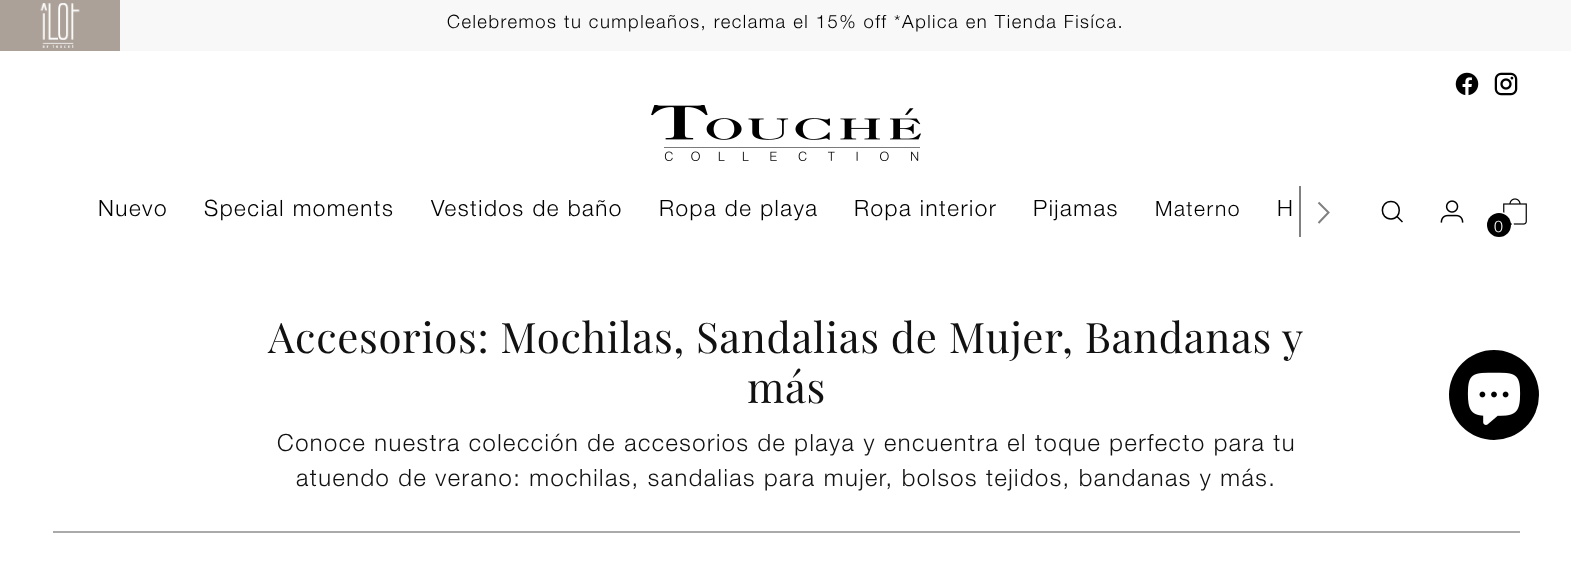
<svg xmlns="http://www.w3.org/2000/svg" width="1571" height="567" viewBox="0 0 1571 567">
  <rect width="100%" height="100%" fill="#ffffff"/>
  <rect x="120" y="0" width="1451" height="51" fill="#f8f8f8"/>
  <image x="0" y="0" width="120" height="51" href="img1.png"/>
  <text x="447" y="28" font-family="Helvetica Neue" font-size="18.4" font-weight="300" letter-spacing="1.5" fill="#000000">Celebremos tu cumpleaños, reclama el 15% off *Aplica en Tienda Fisíca.</text>
  <image x="1455" y="72" width="24" height="24" href="img2.png"/>
  <image x="1494" y="72" width="24" height="24" href="img3.png"/>
  <image x="651" y="105" width="270" height="56" href="img4.png"/>
  <text x="98" y="216" font-family="Helvetica Neue" font-size="22.5" font-weight="300" letter-spacing="1.5" fill="#000000">Nuevo</text>
  <text x="204" y="216" font-family="Helvetica Neue" font-size="22.5" font-weight="300" letter-spacing="1.5" fill="#000000">Special moments</text>
  <text x="431" y="216" font-family="Helvetica Neue" font-size="22.5" font-weight="300" letter-spacing="1.5" fill="#000000">Vestidos de baño</text>
  <text x="659" y="216" font-family="Helvetica Neue" font-size="22.5" font-weight="300" letter-spacing="1.5" fill="#000000">Ropa de playa</text>
  <text x="854" y="216" font-family="Helvetica Neue" font-size="22.5" font-weight="300" letter-spacing="1.5" fill="#000000">Ropa interior</text>
  <text x="1033" y="216" font-family="Helvetica Neue" font-size="22.5" font-weight="300" letter-spacing="1.5" fill="#000000">Pijamas</text>
  <text x="1155" y="216" font-family="Helvetica Neue" font-size="21" font-weight="300" letter-spacing="1.5" fill="#000000">Materno</text>
  <text x="1277" y="216" font-family="Helvetica Neue" font-size="22.5" font-weight="300" letter-spacing="1.5" fill="#000000">H</text>
  <rect x="1299" y="186" width="2" height="51" fill="#808080"/>
  <path d="M1318.5 223L1328.5 212.5L1318.5 202.5" fill="none" stroke="#808080" stroke-width="2"/>
  <path d="M1391 219C1402 219 1402 201.5 1391 201.5C1379.5 201.5 1379.5 219 1391 219Z" fill="none" stroke="#000000" stroke-width="1.5" stroke-linecap="round"/>
  <path d="M1397 216.5L1402.5 222" fill="none" stroke="#000000" stroke-width="1.5"/>
  <image x="1440" y="200" width="24" height="23" href="img5.png"/>
  <image x="1503" y="198" width="24" height="27" href="img6.png"/>
  <rect x="1486" y="213" width="27" height="26" rx="13" fill="none" stroke="#ffffff" stroke-width="2"/>
  <circle cx="1499" cy="225" r="12" fill="#000000"/>
  <text x="1494" y="232" font-family="Helvetica Neue" font-size="16" font-weight="300" fill="#ffffff">0</text>
  <text x="268" y="353" font-family="Playfair Display" font-size="42" letter-spacing="0.63" fill="#111111">Accesorios: Mochilas, Sandalias de Mujer, Bandanas y</text>
  <text x="747" y="403" font-family="Playfair Display" font-size="42" letter-spacing="0.63" fill="#111111">más</text>
  <text x="277" y="451" font-family="Helvetica Neue" font-size="23.7" font-weight="300" letter-spacing="1.5" fill="#111111">Conoce nuestra colección de accesorios de playa y encuentra el toque perfecto para tu</text>
  <text x="296" y="486" font-family="Helvetica Neue" font-size="23.7" font-weight="300" letter-spacing="1.5" fill="#111111">atuendo de verano: mochilas, sandalias para mujer, bolsos tejidos, bandanas y más.</text>
  <rect x="53" y="531" width="1467" height="2" fill="#aaaaaa"/>
  <circle cx="1494" cy="395" r="45" fill="#000000"/>
  <image x="1467" y="372" width="54" height="53" href="img7.png"/>
</svg>
